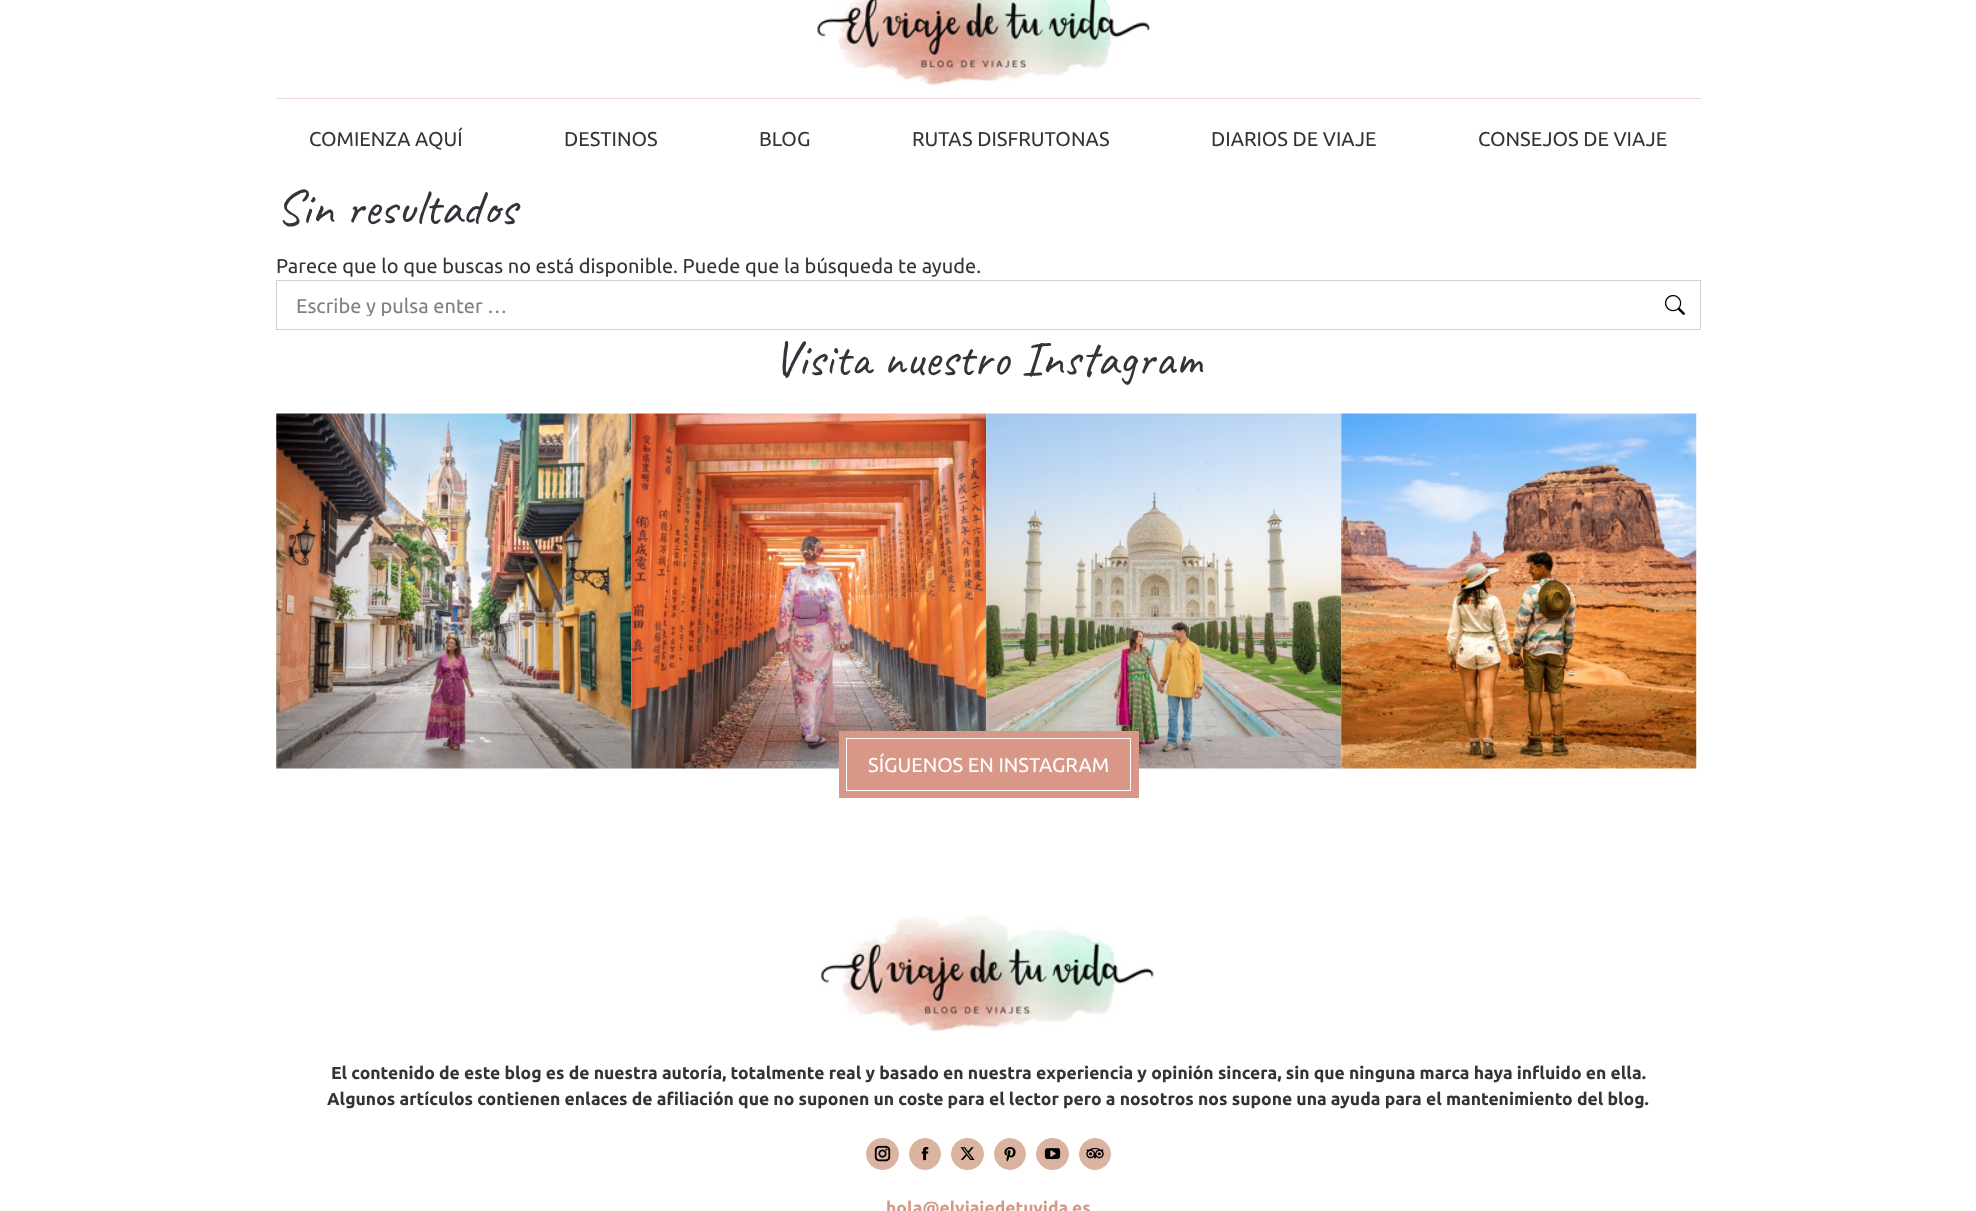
<svg xmlns="http://www.w3.org/2000/svg" width="1976" height="1211" viewBox="0 0 1976 1211">
  <defs>
    <clipPath id="clip1"><rect x="296" y="294" width="1367" height="22"/></clipPath>
  </defs>
  <rect width="100%" height="100%" fill="#ffffff"/>
  <image x="817" y="0" width="334" height="86" href="img1.png"/>
  <rect x="276" y="98" width="1425" height="1" fill="#ebd9d1"/>
  <text x="309" y="146" font-family="Ubuntu" font-size="20" fill="#31353a">COMIENZA AQUÍ</text>
  <text x="564" y="146" font-family="Ubuntu" font-size="20" fill="#31353a">DESTINOS</text>
  <text x="759" y="146" font-family="Ubuntu" font-size="20" fill="#31353a">BLOG</text>
  <text x="912" y="146" font-family="Ubuntu" font-size="20" fill="#31353a">RUTAS DISFRUTONAS</text>
  <text x="1211" y="146" font-family="Ubuntu" font-size="20" fill="#31353a">DIARIOS DE VIAJE</text>
  <text x="1478" y="146" font-family="Ubuntu" font-size="20" fill="#31353a">CONSEJOS DE VIAJE</text>
  <text x="276" y="224" font-family="Caveat" font-size="50" fill="#31353a">Sin resultados</text>
  <text x="276" y="273" font-family="Ubuntu" font-size="20" fill="#31353a">Parece que lo que buscas no está disponible. Puede que la búsqueda te ayude.</text>
  <rect x="276.5" y="280.5" width="1424" height="49" fill="none" stroke="#d0d0d0"/>
  <g clip-path="url(#clip1)">
    <text x="296" y="313" font-family="Ubuntu" font-size="20" fill="#808080">Escribe y pulsa enter …</text>
  </g>
  <image x="1665" y="295" width="20" height="20" href="img2.png"/>
  <text x="773" y="375" font-family="Caveat" font-size="50" fill="#31353a">Visita nuestro Instagram</text>
  <image x="276" y="413" width="356" height="356" href="img3.png"/>
  <image x="631" y="413" width="356" height="356" href="img4.png"/>
  <image x="986" y="413" width="356" height="356" href="img5.png"/>
  <image x="1341" y="413" width="356" height="356" href="img6.png"/>
  <rect x="839" y="731" width="300" height="67" fill="#d99887"/>
  <rect x="846.5" y="738.5" width="284" height="52" fill="none" stroke="#ffffff"/>
  <text x="868" y="772" font-family="Ubuntu" font-size="20" fill="#ffffff">SÍGUENOS EN INSTAGRAM</text>
  <image x="821" y="915" width="335" height="117" href="img7.png"/>
  <text x="331" y="1079" font-family="Ubuntu" font-size="17.5" font-weight="bold" fill="#31353a">El contenido de este blog es de nuestra autoría, totalmente real y basado en nuestra experiencia y opinión sincera, sin que ninguna marca haya influido en ella.</text>
  <text x="327" y="1105" font-family="Ubuntu" font-size="17.5" font-weight="bold" fill="#31353a">Algunos artículos contienen enlaces de afiliación que no suponen un coste para el lector pero a nosotros nos supone una ayuda para el mantenimiento del blog.</text>
  <rect x="866.5" y="1138.5" width="32" height="31" rx="15.5" fill="#dbb3a1" stroke="#dbb3a1"/>
  <image x="874" y="1145" width="17" height="17" href="img8.png"/>
  <circle cx="925" cy="1154" r="15.5" fill="#dbb3a1" stroke="#dbb3a1"/>
  <image x="921" y="1147" width="8" height="14" href="img9.png"/>
  <rect x="951.5" y="1138.5" width="32" height="31" rx="15.5" fill="#dbb3a1" stroke="#dbb3a1"/>
  <image x="960" y="1147" width="15" height="13" href="img10.png"/>
  <circle cx="1010" cy="1154" r="15.5" fill="#dbb3a1" stroke="#dbb3a1"/>
  <image x="1004" y="1147" width="12" height="15" href="img11.png"/>
  <rect x="1036.5" y="1138.5" width="32" height="31" rx="15.5" fill="#dbb3a1" stroke="#dbb3a1"/>
  <image x="1044" y="1148" width="17" height="12" href="img12.png"/>
  <circle cx="1095" cy="1154" r="15.5" fill="#dbb3a1" stroke="#dbb3a1"/>
  <image x="1086" y="1148" width="18" height="11" href="img13.png"/>
  <text x="886" y="1214" font-family="Ubuntu" font-size="17.5" font-weight="bold" fill="#d99887">hola@elviajedetuvida.es</text>
</svg>
